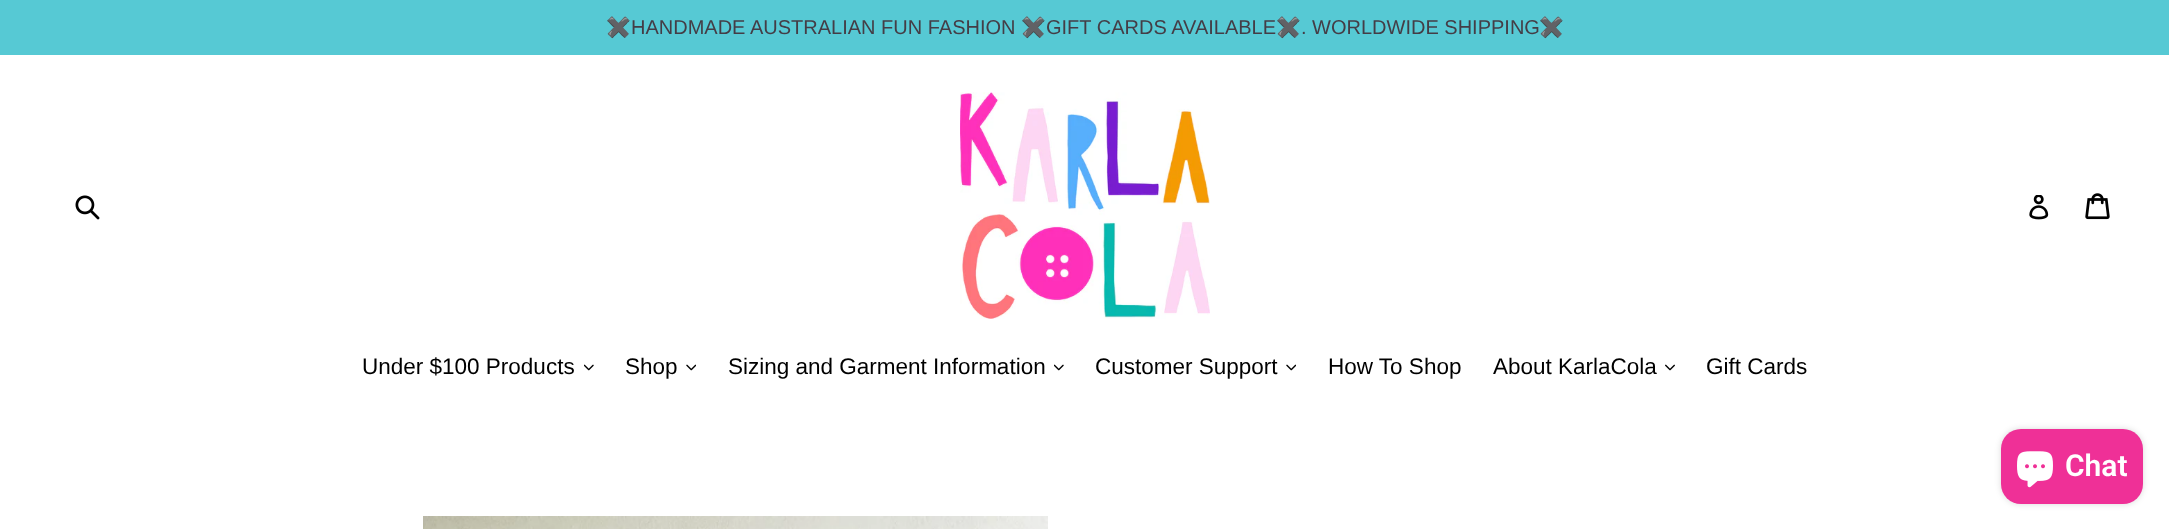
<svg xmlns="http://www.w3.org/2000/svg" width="2169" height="529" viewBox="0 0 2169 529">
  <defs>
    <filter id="blur1" x="-50%" y="-200%" width="200%" height="500%"><feGaussianBlur stdDeviation="3"/></filter>
  </defs>
  <rect width="100%" height="100%" fill="#ffffff"/>
  <rect x="0" y="0" width="2169" height="55" fill="#56c9d4"/>
  <text x="606" y="34" font-family="Noto Color Emoji" font-size="20" fill="#443d46">✖️</text>
  <text x="631" y="34" font-family="Liberation Sans" font-size="20" fill="#443d46">HANDMADE AUSTRALIAN FUN FASHION</text>
  <text x="1021" y="34" font-family="Noto Color Emoji" font-size="20" fill="#443d46">✖️</text>
  <text x="1046" y="34" font-family="Liberation Sans" font-size="20" fill="#443d46">GIFT CARDS AVAILABLE</text>
  <text x="1276" y="34" font-family="Noto Color Emoji" font-size="20" fill="#443d46">✖️</text>
  <text x="1301" y="34" font-family="Liberation Sans" font-size="20" fill="#443d46">. WORLDWIDE SHIPPING</text>
  <text x="1539" y="34" font-family="Noto Color Emoji" font-size="20" fill="#443d46">✖️</text>
  <image x="75" y="195" width="25" height="25" href="img1.png"/>
  <image x="960" y="92" width="250" height="227" href="img2.png"/>
  <image x="2029" y="195" width="20" height="25" href="img3.png"/>
  <image x="2085" y="193" width="25" height="27" href="img4.png"/>
  <text x="362" y="374" font-family="Liberation Sans" font-size="22.5" fill="#000000">Under $100 Products</text>
  <image x="584" y="364" width="10" height="7" href="img5.png"/>
  <text x="625" y="374" font-family="Liberation Sans" font-size="22.5" fill="#000000">Shop</text>
  <image x="686" y="364" width="10" height="7" href="img6.png"/>
  <text x="728" y="374" font-family="Liberation Sans" font-size="22.5" fill="#000000">Sizing and Garment Information</text>
  <image x="1054" y="364" width="10" height="7" href="img5.png"/>
  <text x="1095" y="374" font-family="Liberation Sans" font-size="22.5" fill="#000000">Customer Support</text>
  <image x="1286" y="364" width="10" height="7" href="img6.png"/>
  <text x="1328" y="374" font-family="Liberation Sans" font-size="22.5" fill="#000000">How To Shop</text>
  <text x="1493" y="374" font-family="Liberation Sans" font-size="22.5" fill="#000000">About KarlaCola</text>
  <image x="1665" y="364" width="10" height="7" href="img7.png"/>
  <text x="1706" y="374" font-family="Liberation Sans" font-size="22.5" fill="#000000">Gift Cards</text>
  <rect x="2001" y="429" width="142" height="75" rx="20" fill="#000000" fill-opacity="0.15" filter="url(#blur1)"/>
  <rect x="2001" y="429" width="142" height="75" rx="20" fill="#ef3097"/>
  <image x="2017" y="451" width="36" height="37" href="img8.png"/>
  <text x="2065" y="476" font-family="Roboto" font-size="30" font-weight="600" fill="#ffffff">Chat</text>
  <image x="423" y="516" width="625" height="13" href="img9.png"/>
</svg>
